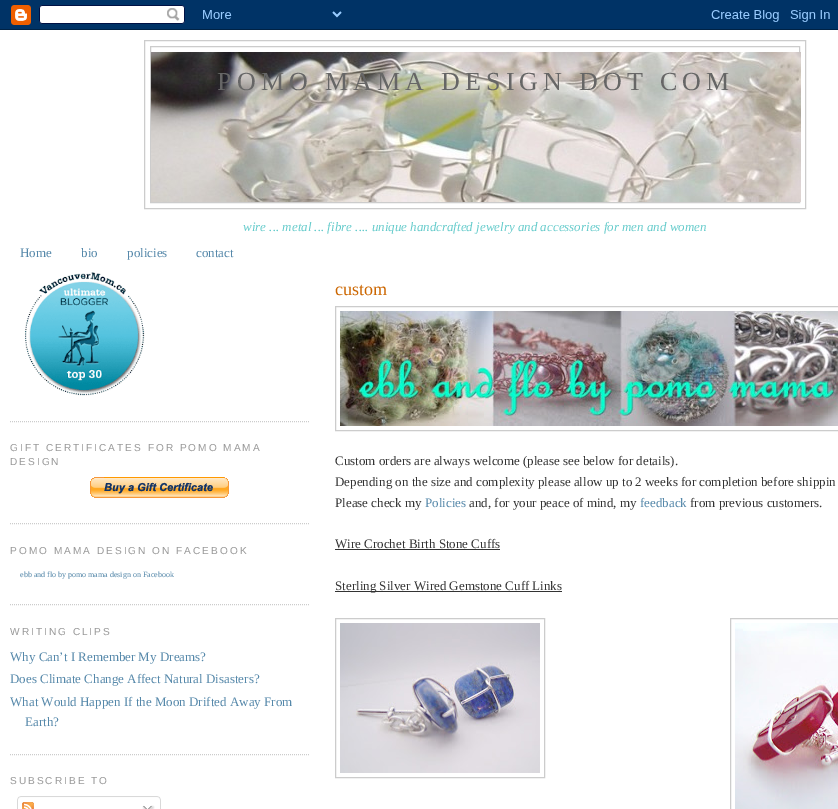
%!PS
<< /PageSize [838 809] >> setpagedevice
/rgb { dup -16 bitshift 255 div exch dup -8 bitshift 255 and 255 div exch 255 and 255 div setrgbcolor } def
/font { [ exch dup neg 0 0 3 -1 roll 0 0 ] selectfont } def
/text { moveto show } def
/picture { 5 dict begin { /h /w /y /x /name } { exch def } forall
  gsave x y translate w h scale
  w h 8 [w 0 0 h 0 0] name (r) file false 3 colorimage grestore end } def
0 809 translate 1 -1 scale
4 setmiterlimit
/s1 { /LiberationSerif-Italic 13 font 16#66CCCC rgb } def
/s2 { /LiberationSerif-Regular 13 font 16#5588AA rgb } def
/s3 { /LiberationSerif-Regular 8 font 16#5588AA rgb } def
/s4 { /LiberationSerif-Regular 18 font 16#CC6600 rgb } def
/s5 { /LiberationSerif-Regular 13 font 16#333333 rgb } def
16#FFFFFF rgb
0 0 838 809 rectfill
(pic1.raw) 0 0 838 30 picture
16#CCCCCC rgb
144.5 40.5 661 168 rectstroke
150.5 46.5 649 156 rectstroke
(pic2.raw) 151 52 650 150 picture
/LiberationSerif-Regular 26 font
16#666666 rgb
217 90 moveto 5.2 0 (POMO MAMA DESIGN DOT COM) ashow
s1
(wire ... metal ... fibre .... unique handcrafted jewelry and accessories for men and women) 243 231 text
s2
(Home) 20 257 text
(bio) 81 257 text
(policies) 127 257 text
(contact) 196 257 text
16#CCCCCC rgb
[1 1] 0 setdash
10 421.5 moveto 310 421.5 lineto stroke
(pic3.raw) 25 272 120 124 picture
10 523.5 moveto 310 523.5 lineto stroke
/LiberationSans-Regular 10.1 font
16#999999 rgb
10 451 moveto 2 0 (GIFT CERTIFICATES FOR POMO MAMA) ashow
10 465 moveto 2 0 (DESIGN) ashow
(pic4.raw) 90 477 139 21 picture
16#CCCCCC rgb
10 604.5 moveto 310 604.5 lineto stroke
16#999999 rgb
10 554 moveto 2 0 (POMO MAMA DESIGN ON FACEBOOK) ashow
s3
(ebb and flo by pomo mama design on Facebook) 20 577 text
16#CCCCCC rgb
10 754.5 moveto 310 754.5 lineto stroke
/LiberationSans-Regular 10.1 font
16#999999 rgb
10 635 moveto 2 0 (WRITING CLIPS) ashow
s2
(Why Can’t I Remember My Dreams?) 10 661 text
(Does Climate Change Affect Natural Disasters?) 10 683 text
(What Would Happen If the Moon Drifted Away From) 10 706 text
(Earth?) 25 726 text
/LiberationSans-Regular 10.1 font
16#999999 rgb
10 784 moveto 2 0 (SUBSCRIBE TO) ashow
(pic5.raw) 17 796 144 13 picture
(pic6.raw) 22 802 12 7 picture
(pic7.raw) 142 805 13 4 picture
s4
(custom) 335 295 text
16#CCCCCC rgb
[] 0 setdash
335.5 306.5 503 124 rectstroke
(pic8.raw) 340 311 498 115 picture
s5
(Custom orders are always welcome \(please see below for details\).) 335 465 text
(Depending on the size and complexity please allow up to 2 weeks for completion before shippin) 335 486 text
(Please check my) 335 507 text
s2
(Policies) 425 507 text
s5
(and, for your peace of mind, my) 469 507 text
s2
(feedback) 640 507 text
s5
(from previous customers.) 690 507 text
(Wire Crochet Birth Stone Cuffs) 335 548 text
335 549 165 1 rectfill
335 591 227 1 rectfill
(Sterling Silver Wired Gemstone Cuff Links) 335 590 text
16#CCCCCC rgb
335.5 618.5 209 159 rectstroke
(pic9.raw) 340 623 200 150 picture
730.5 618.5 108 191 rectstroke
(pic10.raw) 735 623 103 186 picture
showpage
